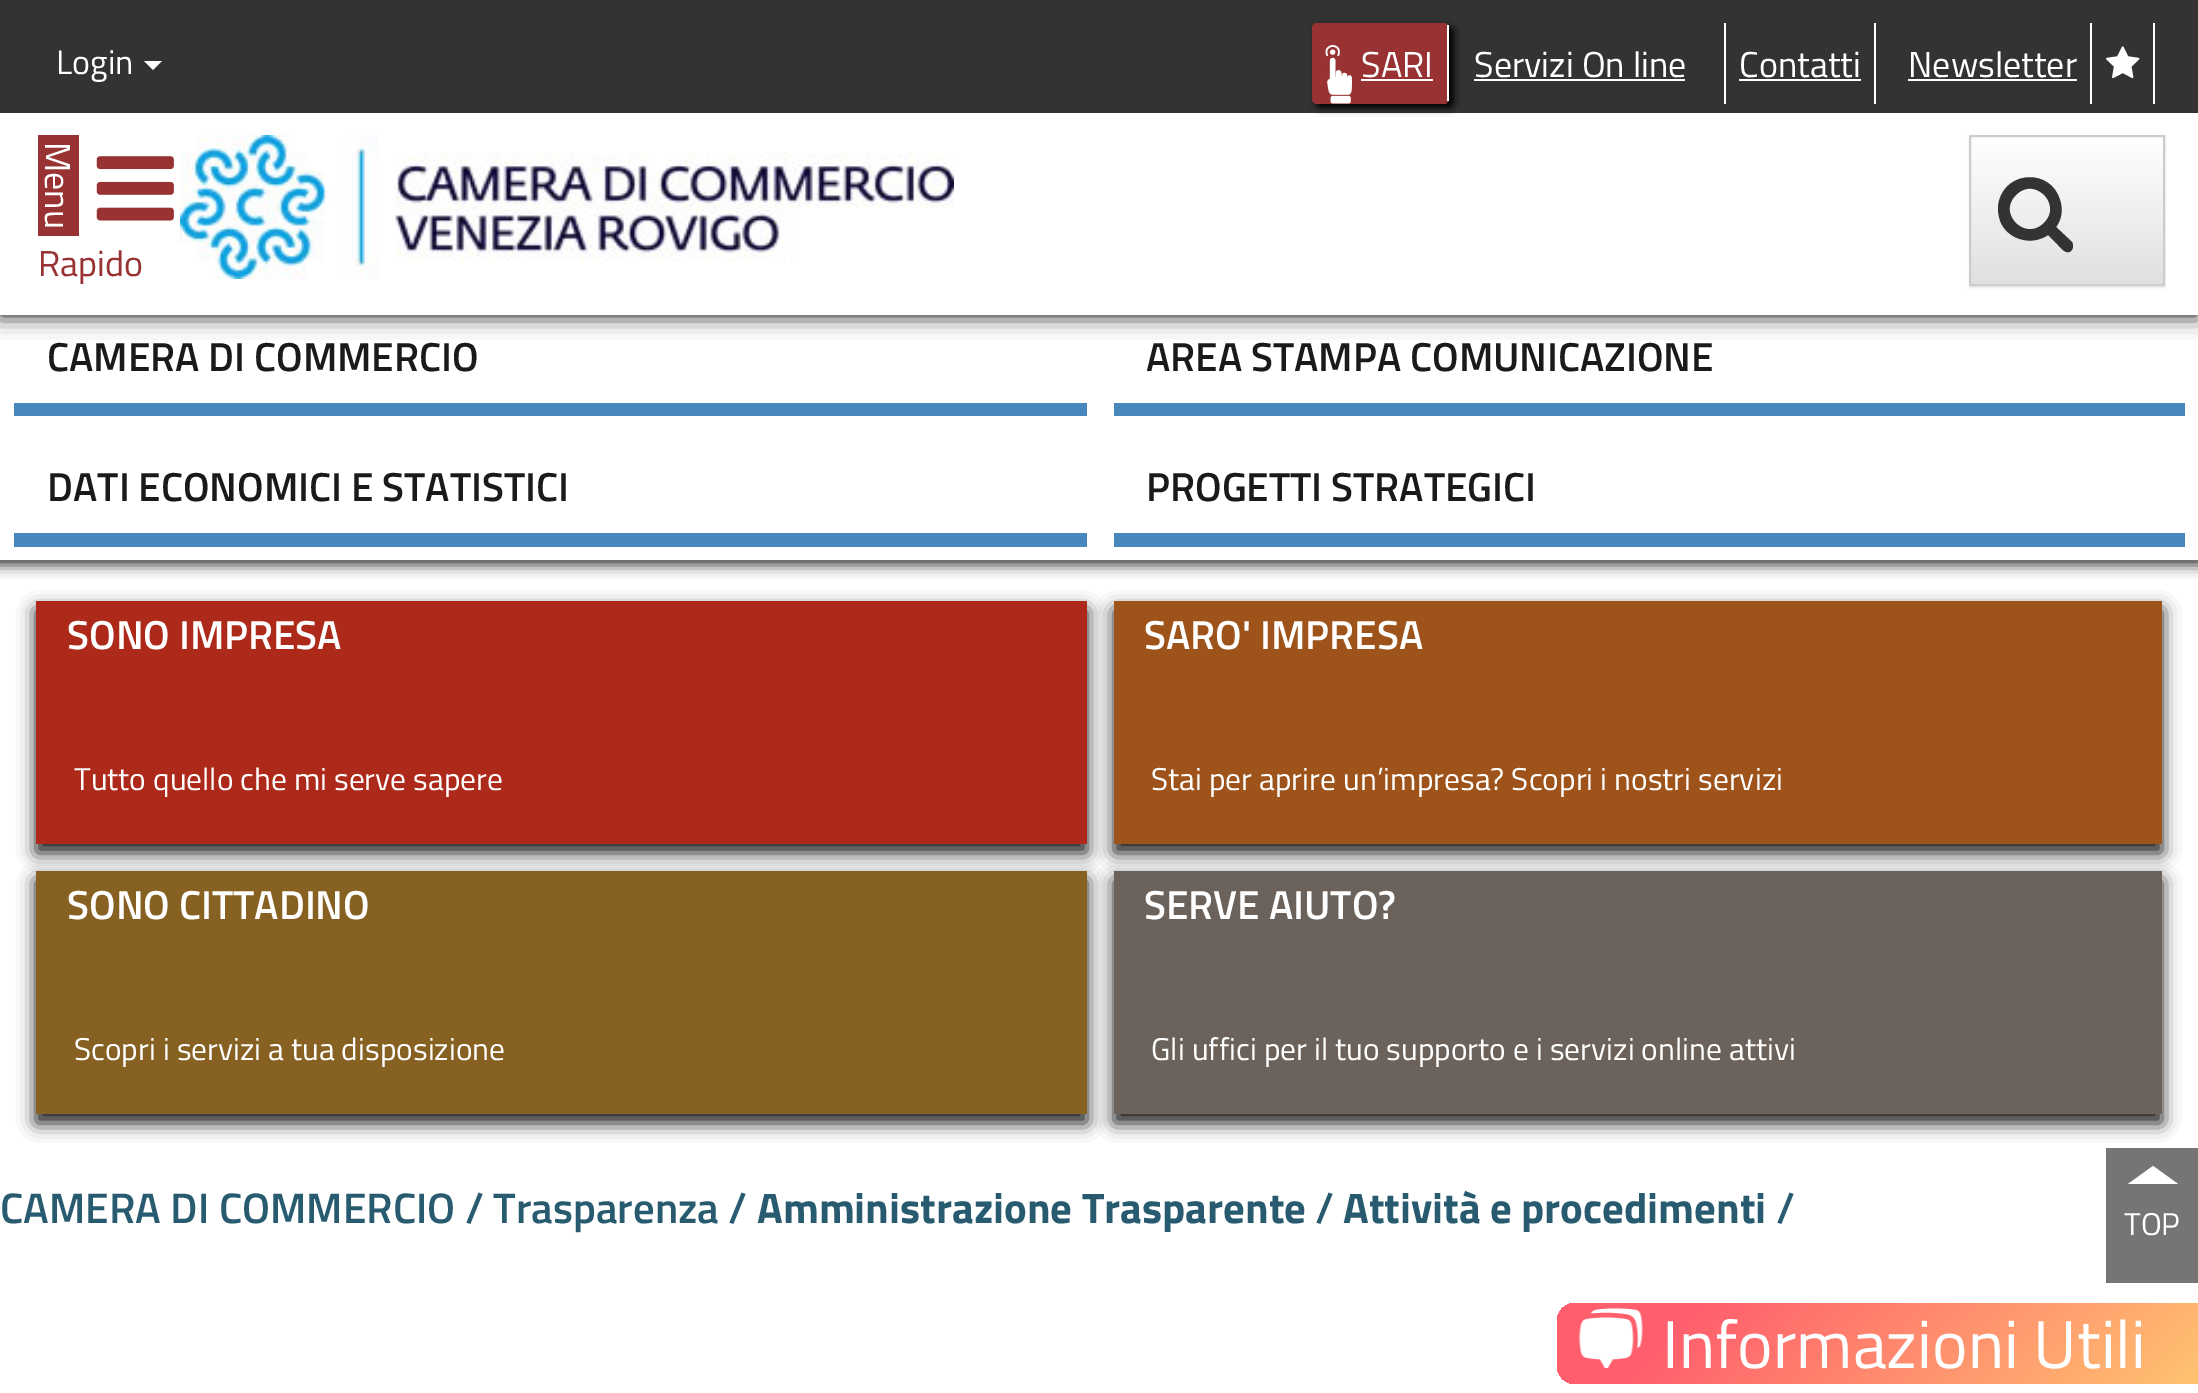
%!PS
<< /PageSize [2198 1393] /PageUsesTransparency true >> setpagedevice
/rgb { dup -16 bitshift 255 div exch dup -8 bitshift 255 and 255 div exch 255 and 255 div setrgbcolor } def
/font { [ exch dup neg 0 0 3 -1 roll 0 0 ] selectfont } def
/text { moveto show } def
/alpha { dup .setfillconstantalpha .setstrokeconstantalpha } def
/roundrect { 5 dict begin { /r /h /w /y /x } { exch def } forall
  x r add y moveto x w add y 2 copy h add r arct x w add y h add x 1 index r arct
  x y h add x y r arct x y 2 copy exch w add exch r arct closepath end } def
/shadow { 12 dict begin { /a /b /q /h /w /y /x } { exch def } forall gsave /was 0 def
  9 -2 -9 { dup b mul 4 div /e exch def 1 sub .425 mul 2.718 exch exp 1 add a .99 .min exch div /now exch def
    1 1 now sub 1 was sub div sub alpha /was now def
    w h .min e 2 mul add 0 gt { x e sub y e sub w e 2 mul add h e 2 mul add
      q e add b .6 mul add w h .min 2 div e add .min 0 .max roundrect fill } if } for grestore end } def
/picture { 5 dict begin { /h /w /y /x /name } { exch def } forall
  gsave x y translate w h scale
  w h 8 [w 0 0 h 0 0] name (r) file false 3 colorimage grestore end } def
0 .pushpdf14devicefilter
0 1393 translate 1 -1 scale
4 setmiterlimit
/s1 { /TitilliumWeb-Regular 34 font 16#FFFFFF rgb } def
/s2 { /TitilliumWeb-Regular 36 font 16#FFFFFF rgb } def
/s3 { /TitilliumWeb-Regular 36 font 16#993333 rgb } def
/s4 { /TitilliumWeb-SemiBold 40.5 font 16#1A1A1A rgb } def
/s5 { /TitilliumWeb-SemiBold 40.5 font 16#FFFFFF rgb } def
/s6 { /TitilliumWeb-Regular 31.5 font 16#FFFFFF rgb } def
/s7 { /TitilliumWeb-SemiBold 42.75 font 16#285B6F rgb } def
/s8 { /TitilliumWeb-Bold 42.75 font 16#285B6F rgb } def
/s9 { /TitilliumWeb-Regular 67.5 font 16#FFFFFF rgb } def
16#FFFFFF rgb
0 0 2198 1393 rectfill
16#000000 rgb
0 113 2198 202 0 11 1 shadow
16#333333 rgb
0 0 2198 113 rectfill
s1
(Login) 56 74 text
144 61 moveto 162 61 lineto 153 70 lineto closepath fill
gsave
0 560 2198 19 rectclip
16#333333 rgb
-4 295 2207 270 0 7 1 shadow
grestore
0 113 2198 202 rectfill
16#000000 rgb
1316 27 138 81 5 3.5 1 shadow
16#993333 rgb
1312 23 137 81 5 roundrect fill
16#FFFFFF rgb
1447 25 2 76 rectfill
(pic1.raw) 1325 45 27 59 picture
s2
(SARI) 1361 77 text
1361 79 72 2 rectfill
1724 23 2 81 rectfill
(Servizi On line) 1474 77 text
1474 79 211 2 rectfill
1874 23 2 81 rectfill
(Contatti) 1739 77 text
1739 79 122 2 rectfill
2090 23 2 81 rectfill
(Newsletter) 1908 77 text
1908 79 169 2 rectfill
2153 23 2 81 rectfill
(pic2.raw) 2106 46 34 33 picture
16#993333 rgb
38 135 41 101 rectfill
16#FFFFFF rgb
gsave 45 142 translate 90 rotate 0 0 moveto (Menu) show grestore
(pic3.raw) 96 156 78 65 picture
s3
(Rapido) 38 276 text
(pic4.raw) 180 135 774 144 picture
16#000000 rgb
1969 137 196 151 0 1 0.07 shadow
gsave 1971 137 moveto 2163 137 lineto 2163 284 lineto 1971 284 lineto closepath clip newpath
<< /ShadingType 2 /ColorSpace /DeviceRGB /Coords [2067 137 2067 284] /Extend [true true] /Function << /FunctionType 2 /Domain [0 1] /C0 [1 1 1] /C1 [0.878 0.878 0.878] /N 1 >> >> shfill grestore
16#CCCCCC rgb
2 setlinewidth
1970 136 194 149 rectstroke
16#333333 rgb
2044 223 moveto 2063 204 2034 176 2016 195 curveto 1997 213 2025 242 2044 223 curveto closepath 2073 247 moveto 2073 248 2072 250 2071 251 curveto 2066 255 2061 248 2058 245 curveto 2048 235 lineto 2032 246 2009 240 2001 223 curveto 1998 216 1997 208 1999 201 curveto 2007 170 2051 169 2060 200 curveto 2063 209 2062 219 2056 227 curveto 2072 242 lineto 2073 244 2073 245 2073 247 curveto closepath fill
16#4787BE rgb
14 403 1073 13 rectfill
s4
(CAMERA DI COMMERCIO) 47 371 text
16#4787BE rgb
1114 403 1071 13 rectfill
s4
(AREA STAMPA COMUNICAZIONE) 1146 371 text
16#4787BE rgb
14 533 1073 14 rectfill
s4
(DATI ECONOMICI E STATISTICI) 47 501 text
16#4787BE rgb
1114 533 1071 14 rectfill
s4
(PROGETTI STRATEGICI) 1146 501 text
36 610 1051 243 0 9 1 shadow
16#AD2A1A rgb
36 601 1051 243 rectfill
s5
(SONO IMPRESA) 67 649 text
s6
(Tutto quello che mi serve sapere) 74 790 text
16#000000 rgb
1114 610 1048 243 0 9 0.9 shadow
16#9D531A rgb
1114 601 1048 243 rectfill
s5
(SARO' IMPRESA) 1144 649 text
s6
(Stai per aprire un’impresa? Scopri i nostri servizi) 1151 790 text
gsave
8 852 moveto 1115 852 lineto 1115 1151 lineto 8 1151 lineto closepath 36 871 moveto 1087 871 lineto 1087 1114 lineto 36 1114 lineto closepath eoclip newpath
16#000000 rgb
36 880 1051 243 0 9 0.9 shadow
grestore
0.9 alpha
16#795009 rgb
36 871 1051 243 rectfill
1 alpha
s5
(SONO CITTADINO) 67 919 text
s6
(Scopri i servizi a tua disposizione) 74 1060 text
gsave
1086 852 moveto 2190 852 lineto 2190 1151 lineto 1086 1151 lineto closepath 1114 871 moveto 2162 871 lineto 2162 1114 lineto 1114 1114 lineto closepath eoclip newpath
16#000000 rgb
1114 880 1048 243 0 9 0.9 shadow
grestore
0.9 alpha
16#5B5249 rgb
1114 871 1048 243 rectfill
1 alpha
s5
(SERVE AIUTO?) 1144 919 text
s6
(Gli uffici per il tuo supporto e i servizi online attivi) 1151 1060 text
s7
(CAMERA DI COMMERCIO / Trasparenza /) 0 1223 text
s8
(Amministrazione Trasparente) 757 1223 text
s7
(/) 1315 1223 text
s8
(Attività e procedimenti) 1343 1223 text
s7
(/) 1776 1223 text
16#757575 rgb
2106 1148 92 135 rectfill
16#FFFFFF rgb
2128 1184 moveto 2153 1166 lineto 2178 1184 lineto closepath fill
s6
(TOP) 2124 1235 text
gsave 1575 1303 moveto 2198 1303 lineto 2198 1384 lineto 1575 1384 lineto 1565 1384 1557 1376 1557 1366 curveto 1557 1321 lineto 1557 1311 1565 1303 1575 1303 curveto closepath clip newpath
<< /ShadingType 2 /ColorSpace /DeviceRGB /Coords [1697 1163 2058 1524] /Extend [true true] /Function << /FunctionType 3 /Domain [0 1] /Functions [<< /FunctionType 2 /Domain [0 1] /C0 [1 0.373 0.427] /C1 [1 0.373 0.427] /N 1 >> << /FunctionType 2 /Domain [0 1] /C0 [1 0.373 0.427] /C1 [1 0.765 0.443] /N 1 >>] /Bounds [0.2] /Encode [0 1 0 1] >> >> shfill grestore
(pic5.raw) 1579 1308 64 60 picture
s9
(Informazioni Utili) 1662 1368 text
.poppdf14devicefilter showpage
